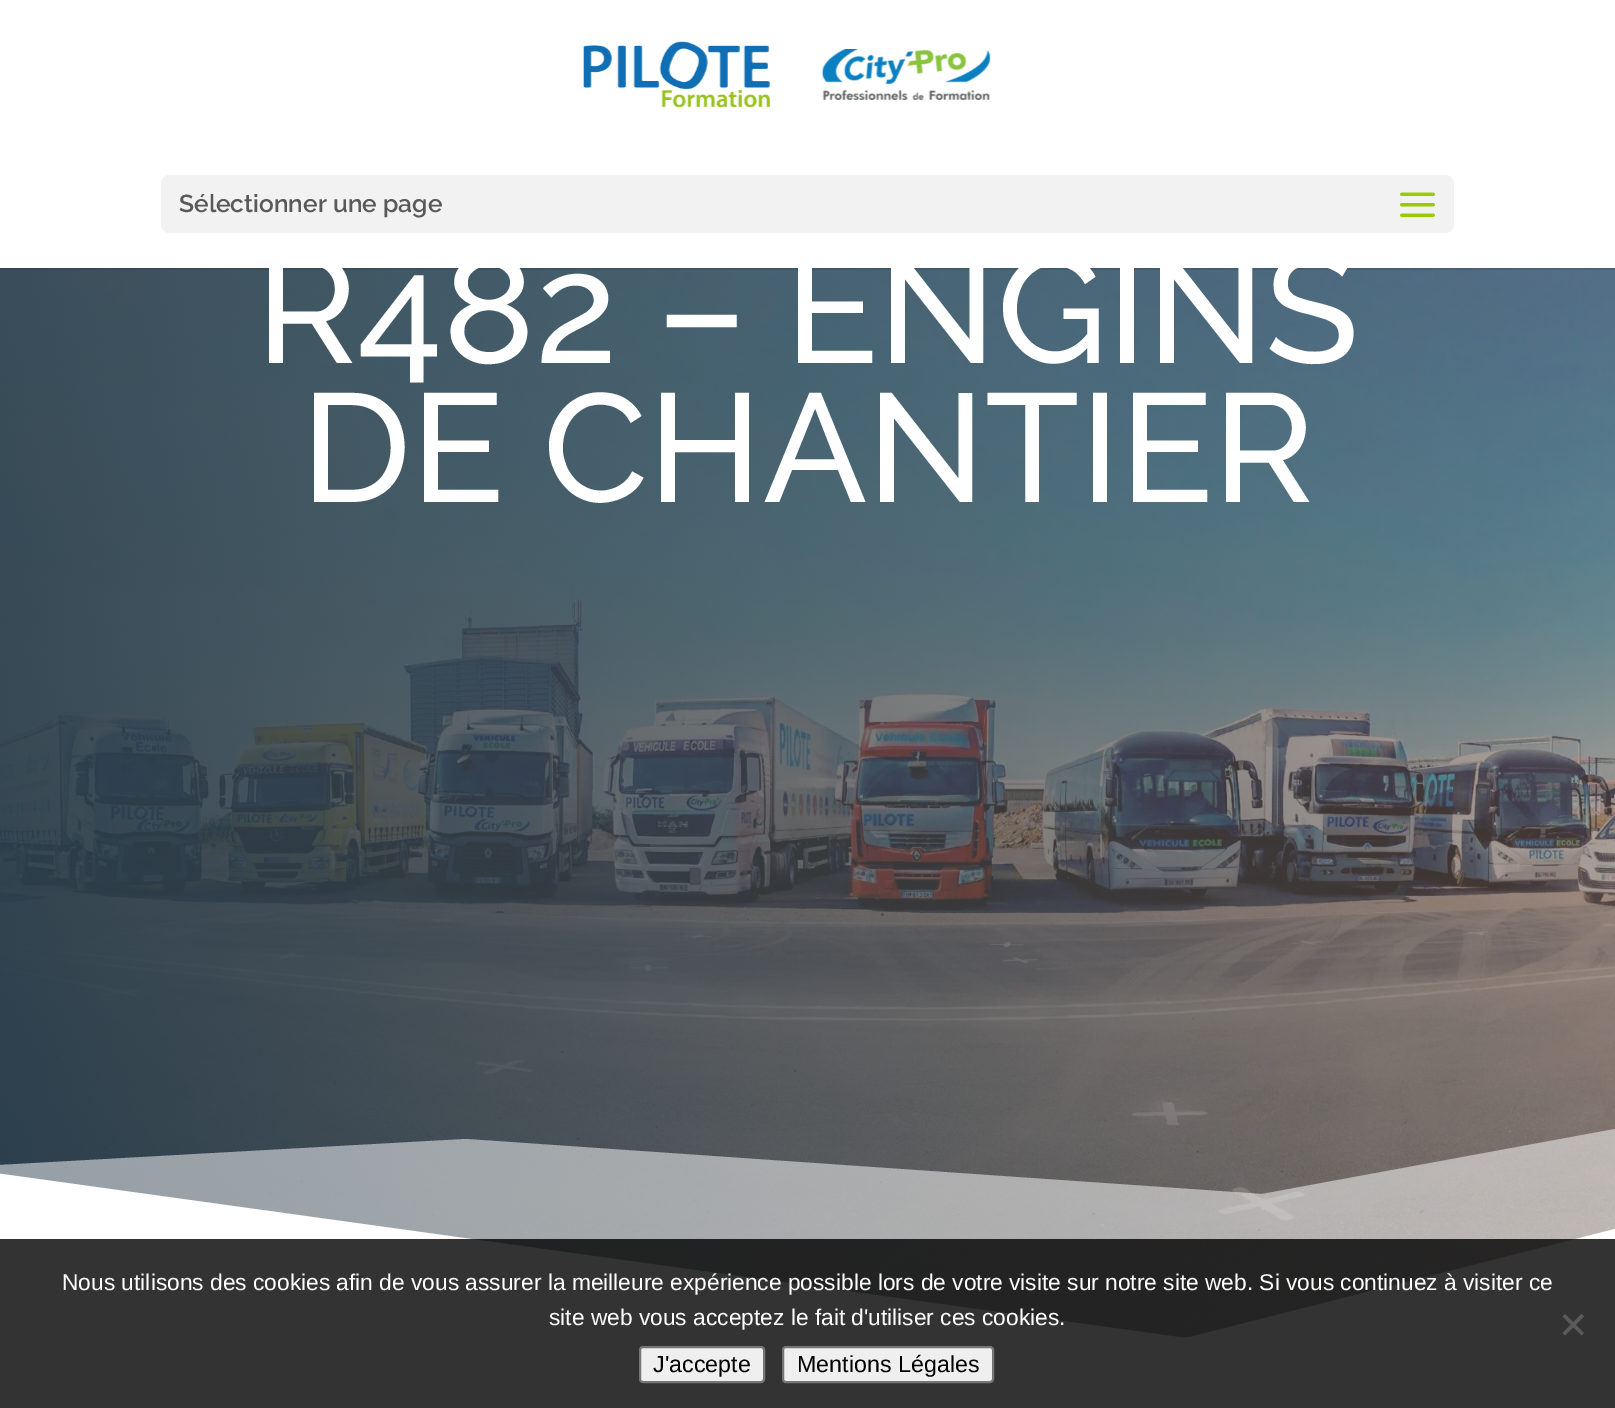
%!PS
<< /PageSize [1615 1408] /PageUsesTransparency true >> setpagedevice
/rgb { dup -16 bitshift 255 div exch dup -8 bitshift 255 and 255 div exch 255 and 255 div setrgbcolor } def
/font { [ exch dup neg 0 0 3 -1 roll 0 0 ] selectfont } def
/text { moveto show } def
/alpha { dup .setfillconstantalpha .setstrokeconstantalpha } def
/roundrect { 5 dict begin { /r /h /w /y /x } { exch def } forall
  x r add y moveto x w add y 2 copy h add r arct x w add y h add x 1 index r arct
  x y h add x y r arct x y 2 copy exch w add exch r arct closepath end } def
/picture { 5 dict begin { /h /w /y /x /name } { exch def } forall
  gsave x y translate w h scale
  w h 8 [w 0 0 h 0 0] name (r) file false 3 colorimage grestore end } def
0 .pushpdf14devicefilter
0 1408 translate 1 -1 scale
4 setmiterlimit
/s1 { /Raleway-SemiBold 24.5 font 16#595959 rgb } def
/s2 { /Raleway-Medium 154 font 16#FFFFFF rgb } def
/s3 { /LiberationSans-Regular 22.75 font 16#FFFFFF rgb } def
/s4 { /LiberationSans-Regular 23.25 font 16#000000 rgb } def
16#FFFFFF rgb
0 0 1615 1408 rectfill
(pic3.raw) 0 268 1615 1069 picture
0.1 alpha
16#000000 rgb
0 268 1615 2 rectfill
1 alpha
(pic1.raw) 583 41 408 67 picture
16#F2F2F2 rgb
161 175 1293 58 9 roundrect fill
s1
(Sélectionner une page) 179 212 text
(pic2.raw) 1400 192 35 25 picture
s2
(R482 – ENGINS) 256 363 text
(DE CHANTIER) 301 502 text
0.5 alpha
1615 1129 moveto 1262 1194 lineto 466 1139 lineto -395 1187 lineto -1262 1096 lineto -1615 1129 lineto -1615 1338 lineto 1615 1338 lineto closepath fill
1 alpha
1615 1338 moveto 1615 1229 lineto 1186 1338 lineto -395 1119 lineto -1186 1137 lineto -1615 1229 lineto -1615 1338 lineto closepath fill
0.8 alpha
16#000000 rgb
0 1239 1615 169 rectfill
1 alpha
s3
(Nous utilisons des cookies afin de vous assurer la meilleure expérience possible lors de votre visite sur notre site web. Si vous continuez à visiter ce) 62 1290 text
(site web vous acceptez le fait d'utiliser ces cookies.) 549 1325 text
16#5A5A5A rgb
1581.5 1314 moveto 1584 1316.5 lineto 1565 1335.5 lineto 1562.5 1333 lineto closepath fill
1562.5 1316.5 moveto 1565 1314 lineto 1584 1333 lineto 1581.5 1335.5 lineto closepath fill
16#EFEFEF rgb
640 1347 124 35 3 roundrect gsave fill grestore
16#767676 rgb
2 setlinewidth
stroke
s4
(J'accepte) 653 1372 text
16#EFEFEF rgb
783 1347 210 35 3 roundrect gsave fill grestore
16#767676 rgb
stroke
s4
(Mentions Légales) 797 1372 text
.poppdf14devicefilter showpage
